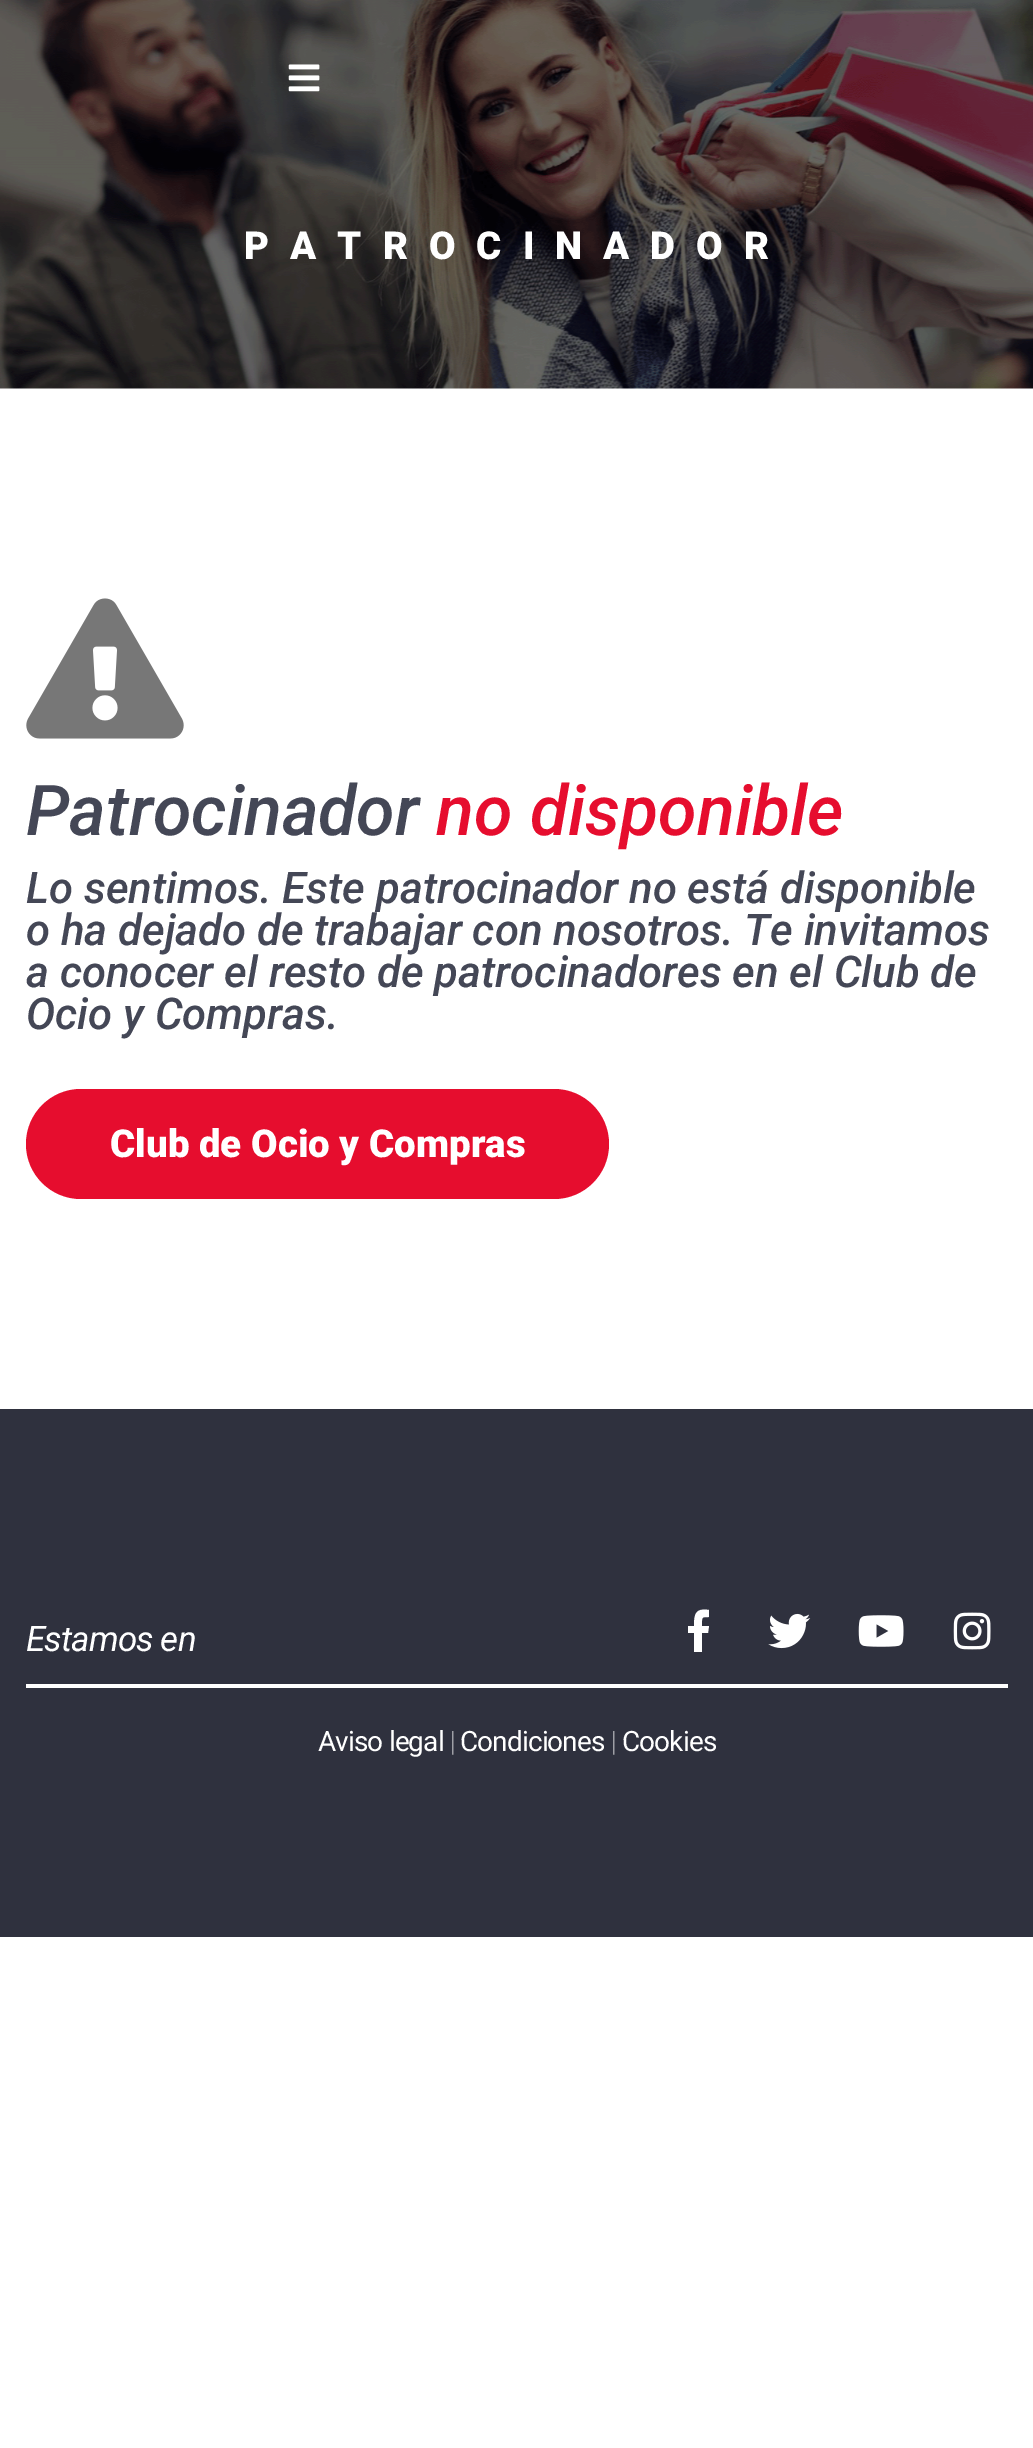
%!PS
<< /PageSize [1033 2448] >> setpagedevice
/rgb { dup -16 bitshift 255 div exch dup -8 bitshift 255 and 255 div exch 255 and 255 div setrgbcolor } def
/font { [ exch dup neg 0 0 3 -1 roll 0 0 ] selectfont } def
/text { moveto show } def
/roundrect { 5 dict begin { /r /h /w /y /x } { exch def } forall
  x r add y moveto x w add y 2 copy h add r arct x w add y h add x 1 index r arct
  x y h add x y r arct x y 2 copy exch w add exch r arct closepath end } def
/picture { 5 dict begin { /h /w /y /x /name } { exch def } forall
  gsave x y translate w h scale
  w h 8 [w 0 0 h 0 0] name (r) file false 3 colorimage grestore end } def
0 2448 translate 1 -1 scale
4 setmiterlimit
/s1 { /Roboto-MediumItalic 70 font 16#444756 rgb } def
/s2 { /Roboto-MediumItalic 70 font 16#E60D2E rgb } def
/s3 { /Roboto-MediumItalic 43.75 font 16#444756 rgb } def
/s4 { /Roboto-Black 38.5 font 16#FFFFFF rgb } def
16#FFFFFF rgb
0 0 1033 2448 rectfill
(pic2.raw) 0 0 1033 389 picture
(pic1.raw) 288 64 32 28 picture
/Roboto-Black 38.5 font
244 259 moveto 21 0 (PATROCINADOR) ashow
(pic3.raw) 26 598 158 141 picture
s1
(Patrocinador) 26 835 text
s2
(no disponible) 436 835 text
s3
(Lo sentimos. Este patrocinador no está disponible) 26 903 text
(o ha dejado de trabajar con nosotros. Te invitamos) 26 945 text
(a conocer el resto de patrocinadores en el Club de) 26 987 text
(Ocio y Compras.) 26 1029 text
16#E60D2E rgb
26 1089 583 110 55 roundrect fill
s4
(Club de Ocio y Compras) 110 1157 text
16#2F313E rgb
0 1409 1033 528 rectfill
/Roboto-Italic 35 font
16#FFFFFF rgb
26 1651 moveto -0.9 0 (Estamos en) ashow
694 1652 moveto 694 1633 lineto 688 1633 lineto 688 1626 lineto 694 1626 lineto 694 1613 696 1608 709 1610 curveto 709 1617 lineto 701 1617 702 1617 702 1626 curveto 709 1626 lineto 708 1633 lineto 702 1633 lineto 702 1652 lineto closepath fill
(pic4.raw) 768 1613 43 36 picture
(pic5.raw) 858 1615 46 32 picture
(pic6.raw) 953 1612 38 38 picture
26 1684 982 4 rectfill
/Roboto-Regular 28 font
318 1751 moveto -0.9 0 (Aviso legal) ashow
/Roboto-Thin 28 font
450 1751 moveto -0.9 0 (|) ashow
/Roboto-Regular 28 font
460 1751 moveto -0.9 0 (Condiciones) ashow
/Roboto-Thin 28 font
611 1751 moveto -0.9 0 (|) ashow
/Roboto-Regular 28 font
622 1751 moveto -0.9 0 (Cookies) ashow
showpage
